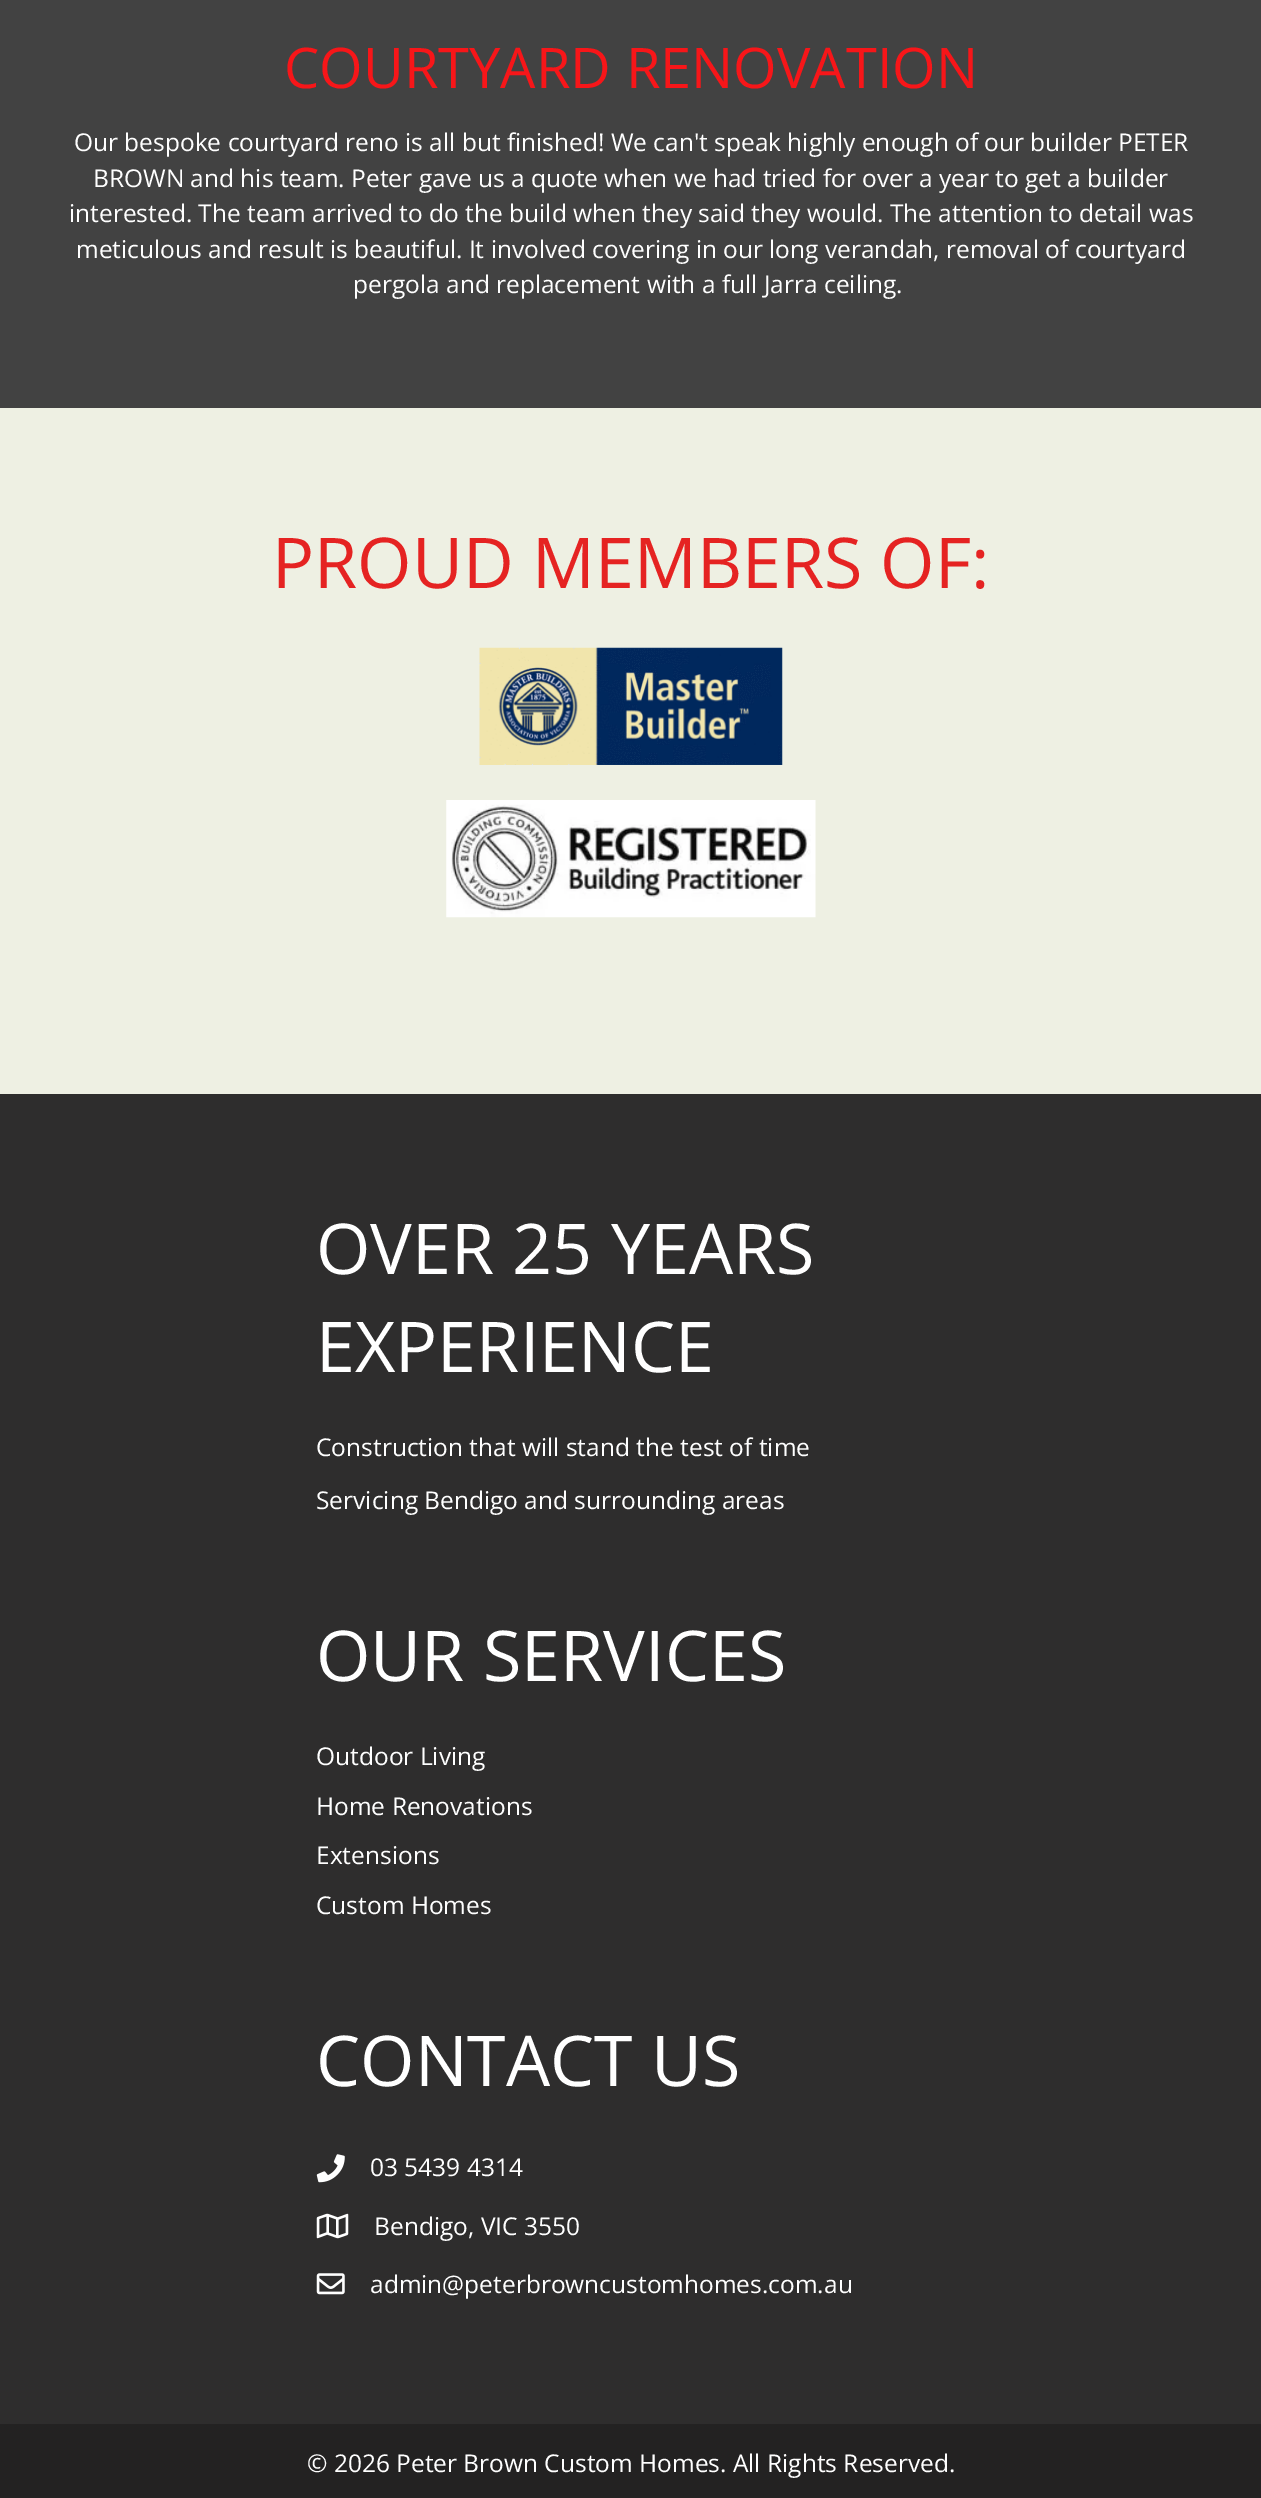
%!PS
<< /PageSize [1261 2498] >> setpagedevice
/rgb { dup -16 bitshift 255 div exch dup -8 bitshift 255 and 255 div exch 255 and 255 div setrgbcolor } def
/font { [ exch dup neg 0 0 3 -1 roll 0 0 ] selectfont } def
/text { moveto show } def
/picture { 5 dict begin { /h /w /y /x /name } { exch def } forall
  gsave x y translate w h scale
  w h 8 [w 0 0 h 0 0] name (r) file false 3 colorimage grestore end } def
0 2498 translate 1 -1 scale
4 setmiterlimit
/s1 { /OpenSans-Regular 56 font 16#F71619 rgb } def
/s2 { /OpenSans-Regular 24.5 font 16#FFFFFF rgb } def
/s3 { /OpenSans-Regular 70 font 16#E52322 rgb } def
/s4 { /OpenSans-Regular 70 font 16#FFFFFF rgb } def
16#424242 rgb
0 0 1261 2498 rectfill
s1
(COURTYARD RENOVATION) 284 88 text
s2
(Our bespoke courtyard reno is all but finished! We can't speak highly enough of our builder PETER) 74 151 text
(BROWN and his team. Peter gave us a quote when we had tried for over a year to get a builder) 93 187 text
(interested. The team arrived to do the build when they said they would. The attention to detail was) 69 222 text
(meticulous and result is beautiful. It involved covering in our long verandah, removal of courtyard) 76 258 text
(pergola and replacement with a full Jarra ceiling.) 353 293 text
16#EEF0E3 rgb
0 408 1261 686 rectfill
s3
(PROUD MEMBERS OF:) 272 588 text
(pic1.raw) 479 647 304 118 picture
(pic2.raw) 446 800 370 118 picture
16#2E2D2D rgb
0 1094 1261 1330 rectfill
s4
(OVER 25 YEARS) 316 1274 text
(EXPERIENCE) 316 1372 text
s2
(Construction that will stand the test of time) 316 1456 text
(Servicing Bendigo and surrounding areas) 316 1509 text
s4
(OUR SERVICES) 316 1681 text
s2
(Outdoor Living) 316 1765 text
(Home Renovations) 316 1815 text
(Extensions) 316 1864 text
(Custom Homes) 316 1914 text
s4
(CONTACT US) 316 2086 text
(pic3.raw) 316 2154 29 29 picture
s2
(03 5439 4314) 370 2176 text
(pic4.raw) 316 2213 33 26 picture
(Bendigo, VIC 3550) 374 2235 text
(pic5.raw) 316 2273 29 22 picture
(admin@peterbrowncustomhomes.com.au) 370 2293 text
16#232222 rgb
0 2424 1261 74 rectfill
s2
(© 2026 Peter Brown Custom Homes. All Rights Reserved.) 307 2472 text
showpage
